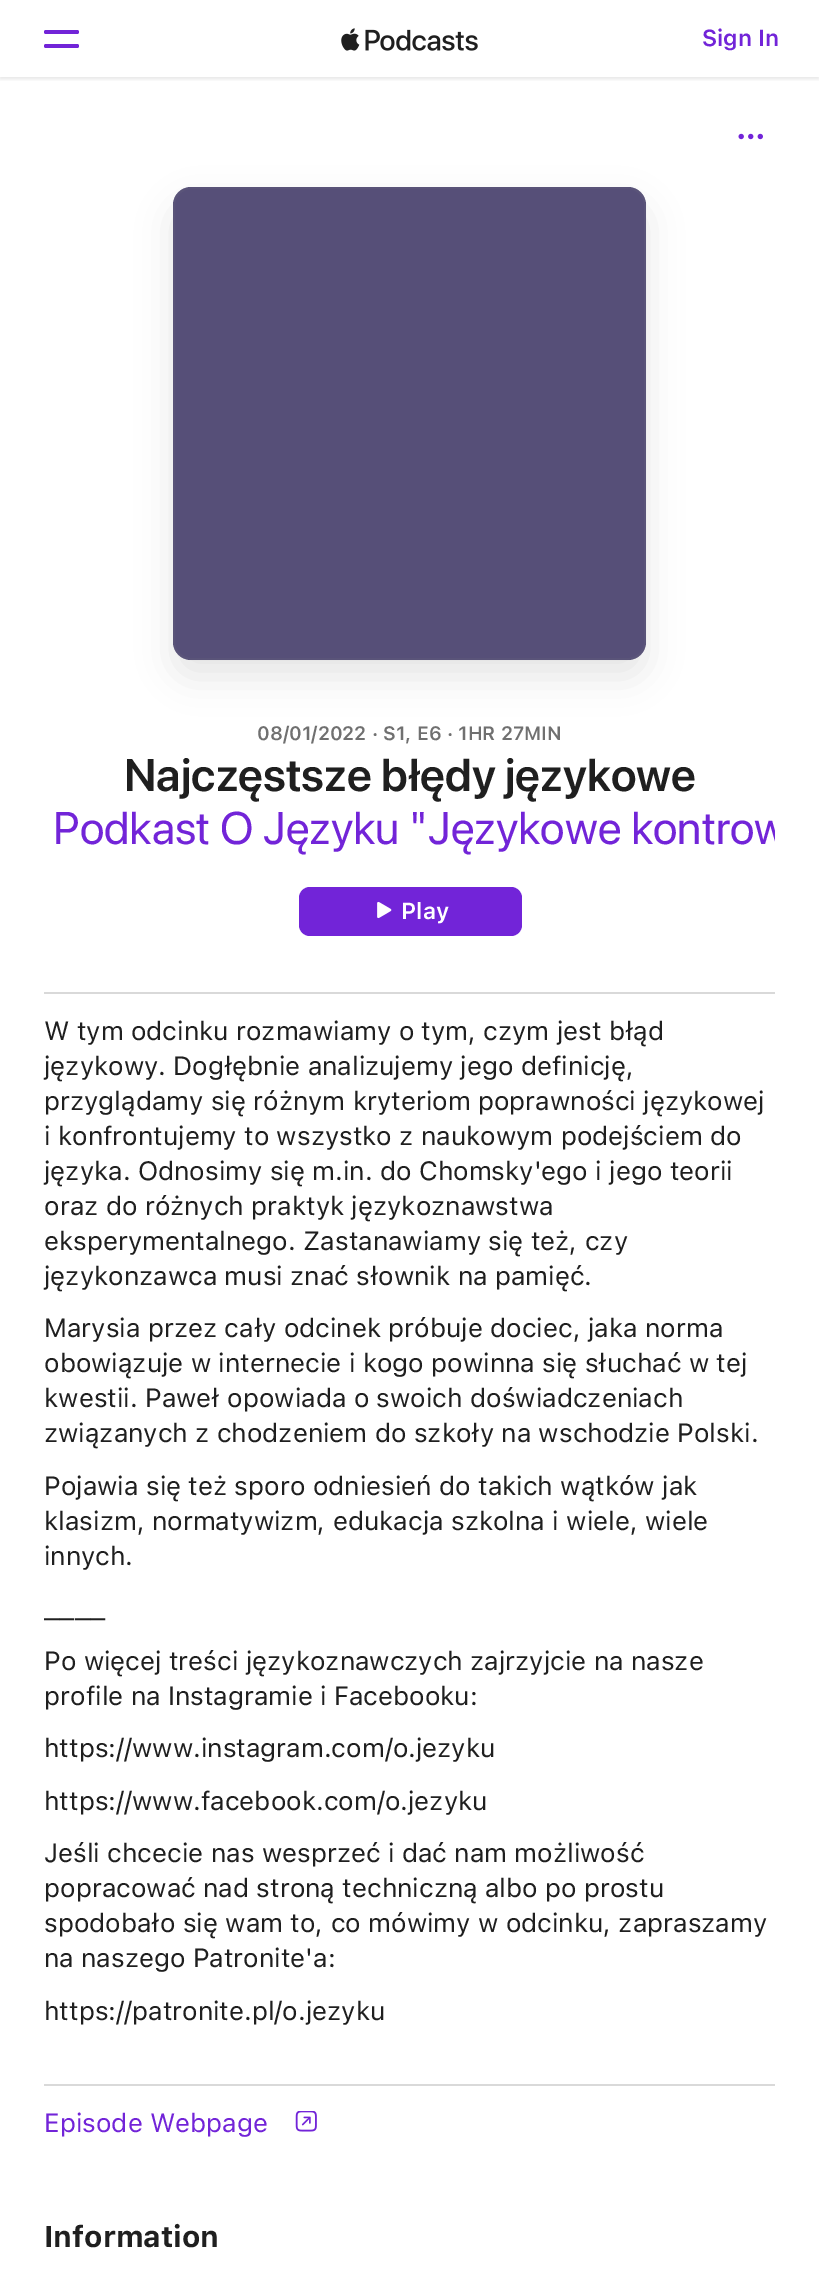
%!PS
<< /PageSize [819 2277] /PageUsesTransparency true >> setpagedevice
/rgb { dup -16 bitshift 255 div exch dup -8 bitshift 255 and 255 div exch 255 and 255 div setrgbcolor } def
/font { [ exch dup neg 0 0 3 -1 roll 0 0 ] selectfont } def
/text { moveto show } def
/alpha { dup .setfillconstantalpha .setstrokeconstantalpha } def
/roundrect { 5 dict begin { /r /h /w /y /x } { exch def } forall
  x r add y moveto x w add y 2 copy h add r arct x w add y h add x 1 index r arct
  x y h add x y r arct x y 2 copy exch w add exch r arct closepath end } def
/shadow { 12 dict begin { /a /b /q /h /w /y /x } { exch def } forall gsave /was 0 def
  9 -2 -9 { dup b mul 4 div /e exch def 1 sub .425 mul 2.718 exch exp 1 add a .99 .min exch div /now exch def
    1 1 now sub 1 was sub div sub alpha /was now def
    w h .min e 2 mul add 0 gt { x e sub y e sub w e 2 mul add h e 2 mul add
      q e add b .6 mul add w h .min 2 div e add .min 0 .max roundrect fill } if } for grestore end } def
/picture { 5 dict begin { /h /w /y /x /name } { exch def } forall
  gsave x y translate w h scale
  w h 8 [w 0 0 h 0 0] name (r) file false 3 colorimage grestore end } def
0 .pushpdf14devicefilter
0 2277 translate 1 -1 scale
4 setmiterlimit
/s1 { /SF-SemiBold 23 font 16#7224D8 rgb } def
/s2 { /SF-SemiBold 19.25 font 16#707070 rgb } def
/s3 { /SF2-SemiBold 45.5 font 16#1F1F1F rgb } def
/s4 { /SF-Regular 45.5 font 16#7224D8 rgb } def
/s5 { /SF-SemiBold 23 font 16#FFFFFF rgb } def
/s6 { /SF2-Regular 26.25 font 16#1F1F1F rgb } def
/s7 { /SF2-Regular 26.25 font 16#7224D8 rgb } def
/s8 { /SF-Bold 29.75 font 16#1F1F1F rgb } def
16#FFFFFF rgb
0 0 819 2277 rectfill
gsave
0 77 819 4 rectclip
16#000000 rgb
0 2 819 77 0 2 0.1 shadow
grestore
16#7224D8 rgb
44 30 35 4 2 roundrect fill
44 44 35 4 2 roundrect fill
(pic1.raw) 341 28 137 23 picture
s1
(Sign In) 702 46 text
(pic2.raw) 738 133 25 7 picture
16#000000 rgb
173 205 473 472 18 17.5 0.1 shadow
16#564F78 rgb
173 187 473 473 18 roundrect fill
0.1 alpha
16#808080 rgb
2 setlinewidth
174 188 471 471 17 roundrect stroke
1 alpha
s2
(08/01/2022 · S1, E6 · 1HR 27MIN) 257 740 text
s3
(Najczęstsze błędy językowe) 124 791 text
gsave
44 791 731 74 rectclip
s4
(Podkast O Języku "Językowe kontrow) 53 844 text
grestore
16#7224D8 rgb
299 887 223 49 11 roundrect fill
(pic3.raw) 377 901 15 18 picture
s5
(Play) 401 919 text
16#D9D9D9 rgb
44 992 731 2 rectfill
s6
(W tym odcinku rozmawiamy o tym, czym jest błąd) 44 1040 text
(językowy. Dogłębnie analizujemy jego definicję,) 44 1075 text
(przyglądamy się różnym kryteriom poprawności językowej) 44 1110 text
(i konfrontujemy to wszystko z naukowym podejściem do) 44 1145 text
(języka. Odnosimy się m.in. do Chomsky'ego i jego teorii) 44 1180 text
(oraz do różnych praktyk językoznawstwa) 44 1215 text
(eksperymentalnego. Zastanawiamy się też, czy) 44 1250 text
(językonzawca musi znać słownik na pamięć.) 44 1285 text
(Marysia przez cały odcinek próbuje dociec, jaka norma) 44 1337 text
(obowiązuje w internecie i kogo powinna się słuchać w tej) 44 1372 text
(kwestii. Paweł opowiada o swoich doświadczeniach) 44 1407 text
(związanych z chodzeniem do szkoły na wschodzie Polski.) 44 1442 text
(Pojawia się też sporo odniesień do takich wątków jak) 44 1495 text
(klasizm, normatywizm, edukacja szkolna i wiele, wiele) 44 1530 text
(innych.) 44 1565 text
(____) 44 1617 text
(Po więcej treści językoznawczych zajrzyjcie na nasze) 44 1670 text
(profile na Instagramie i Facebooku:) 44 1705 text
(https://www.instagram.com/o.jezyku) 44 1757 text
(https://www.facebook.com/o.jezyku) 44 1810 text
(Jeśli chcecie nas wesprzeć i dać nam możliwość) 44 1862 text
(popracować nad stroną techniczną albo po prostu) 44 1897 text
(spodobało się wam to, co mówimy w odcinku, zapraszamy) 44 1932 text
(na naszego Patronite'a:) 44 1967 text
(https://patronite.pl/o.jezyku) 44 2020 text
16#D9D9D9 rgb
44 2084 731 2 rectfill
s7
(Episode Webpage) 44 2132 text
(pic4.raw) 295 2111 22 21 picture
s8
(Information) 44 2247 text
.poppdf14devicefilter showpage
